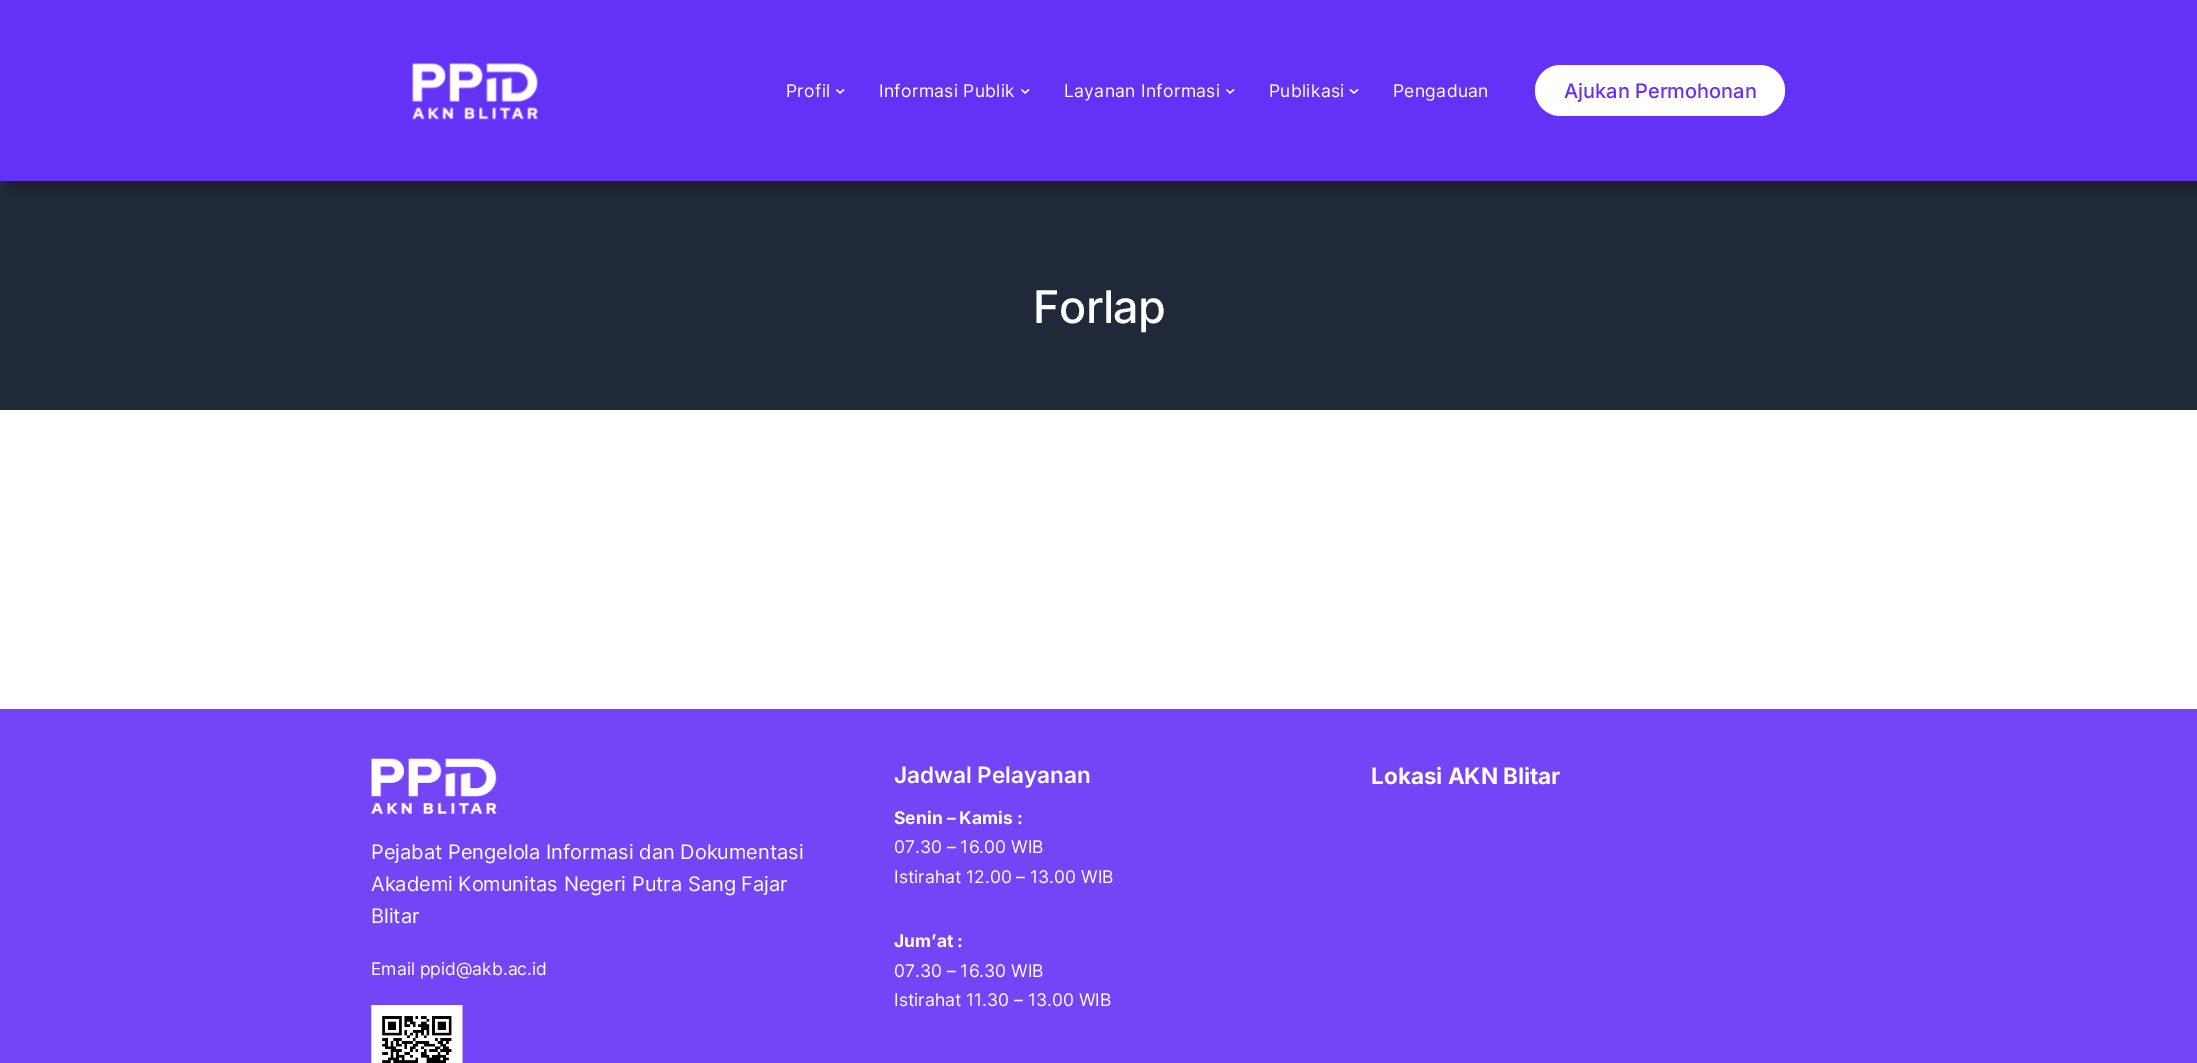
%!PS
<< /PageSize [2197 1063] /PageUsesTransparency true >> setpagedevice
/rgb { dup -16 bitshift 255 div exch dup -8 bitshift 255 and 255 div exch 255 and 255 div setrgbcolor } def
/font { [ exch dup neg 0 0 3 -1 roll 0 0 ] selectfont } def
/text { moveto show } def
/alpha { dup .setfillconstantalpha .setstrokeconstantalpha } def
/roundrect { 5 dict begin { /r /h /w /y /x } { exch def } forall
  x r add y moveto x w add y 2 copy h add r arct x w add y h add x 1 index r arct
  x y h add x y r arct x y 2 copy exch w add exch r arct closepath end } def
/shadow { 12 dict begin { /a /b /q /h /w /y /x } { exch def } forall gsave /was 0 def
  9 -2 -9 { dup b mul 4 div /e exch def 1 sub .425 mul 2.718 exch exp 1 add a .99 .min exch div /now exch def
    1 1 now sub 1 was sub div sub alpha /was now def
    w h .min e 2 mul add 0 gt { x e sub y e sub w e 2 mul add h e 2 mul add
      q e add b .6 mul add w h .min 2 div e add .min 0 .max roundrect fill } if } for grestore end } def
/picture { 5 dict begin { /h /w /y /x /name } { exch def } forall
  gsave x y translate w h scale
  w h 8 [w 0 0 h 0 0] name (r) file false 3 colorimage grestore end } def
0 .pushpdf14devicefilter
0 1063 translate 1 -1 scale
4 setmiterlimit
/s1 { /Inter-Medium 20 font 16#6431F6 rgb } def
/s2 { /Inter-SemiBold 22.5 font 16#FFFFFF rgb } def
/s3 { /Inter-Bold 17.5 font 16#FFFFFF rgb } def
/s4 { /Inter-Regular 17.5 font 16#FFFFFF rgb } def
/s5 { /Inter-Bold 22.5 font 16#FFFFFF rgb } def
/s6 { /Inter-Regular 20 font 16#FFFFFF rgb } def
16#FFFFFF rgb
0 0 2197 1063 rectfill
16#1F2937 rgb
0 181 2197 229 rectfill
16#000000 rgb
8 8 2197 181 0 5.5 0.2 shadow
16#6431F7 rgb
0 0 2197 181 rectfill
(pic1.raw) 412 63 127 57 picture
/Inter-Regular 17.5 font
16#FFFFFF rgb
786 97 moveto 0.3 0 (Profil) ashow
1.3 setlinewidth
836.5 89.5 moveto 840 93 lineto 844 89.5 lineto stroke
879 97 moveto 0.3 0 (Informasi Publik) ashow
1021.5 89.5 moveto 1025 93 lineto 1029 89.5 lineto stroke
1064 97 moveto 0.3 0 (Layanan Informasi) ashow
1226.5 89.5 moveto 1230 93 lineto 1234 89.5 lineto stroke
1269 97 moveto 0.3 0 (Publikasi) ashow
1350 89.5 moveto 1354 93 lineto 1358 89.5 lineto stroke
1393 97 moveto 0.3 0 (Pengaduan) ashow
1535 65 250 51 25.5 roundrect fill
s1
(Ajukan Permohonan) 1564 98 text
/Inter-Medium 45 font
16#FFFFFF rgb
1033 323 moveto -0.5 0 (Forlap) ashow
16#7345F7 rgb
0 709 2197 354 rectfill
s2
(Jadwal Pelayanan) 894 783 text
s3
(Senin – Kamis :) 894 824 text
s4
(07.30 – 16.00 WIB) 894 853 text
(Istirahat 12.00 – 13.00 WIB) 894 883 text
s3
(Jum’at :) 894 947 text
s4
(07.30 – 16.30 WIB) 894 977 text
(Istirahat 11.30 – 13.00 WIB) 894 1006 text
s5
(Lokasi AKN Blitar) 1371 784 text
(pic2.raw) 371 758 126 56 picture
s6
(Pejabat Pengelola Informasi dan Dokumentasi) 371 859 text
(Akademi Komunitas Negeri Putra Sang Fajar) 371 891 text
(Blitar) 371 923 text
s4
(Email ppid@akb.ac.id) 371 975 text
(pic3.raw) 371 1005 92 58 picture
.poppdf14devicefilter showpage
